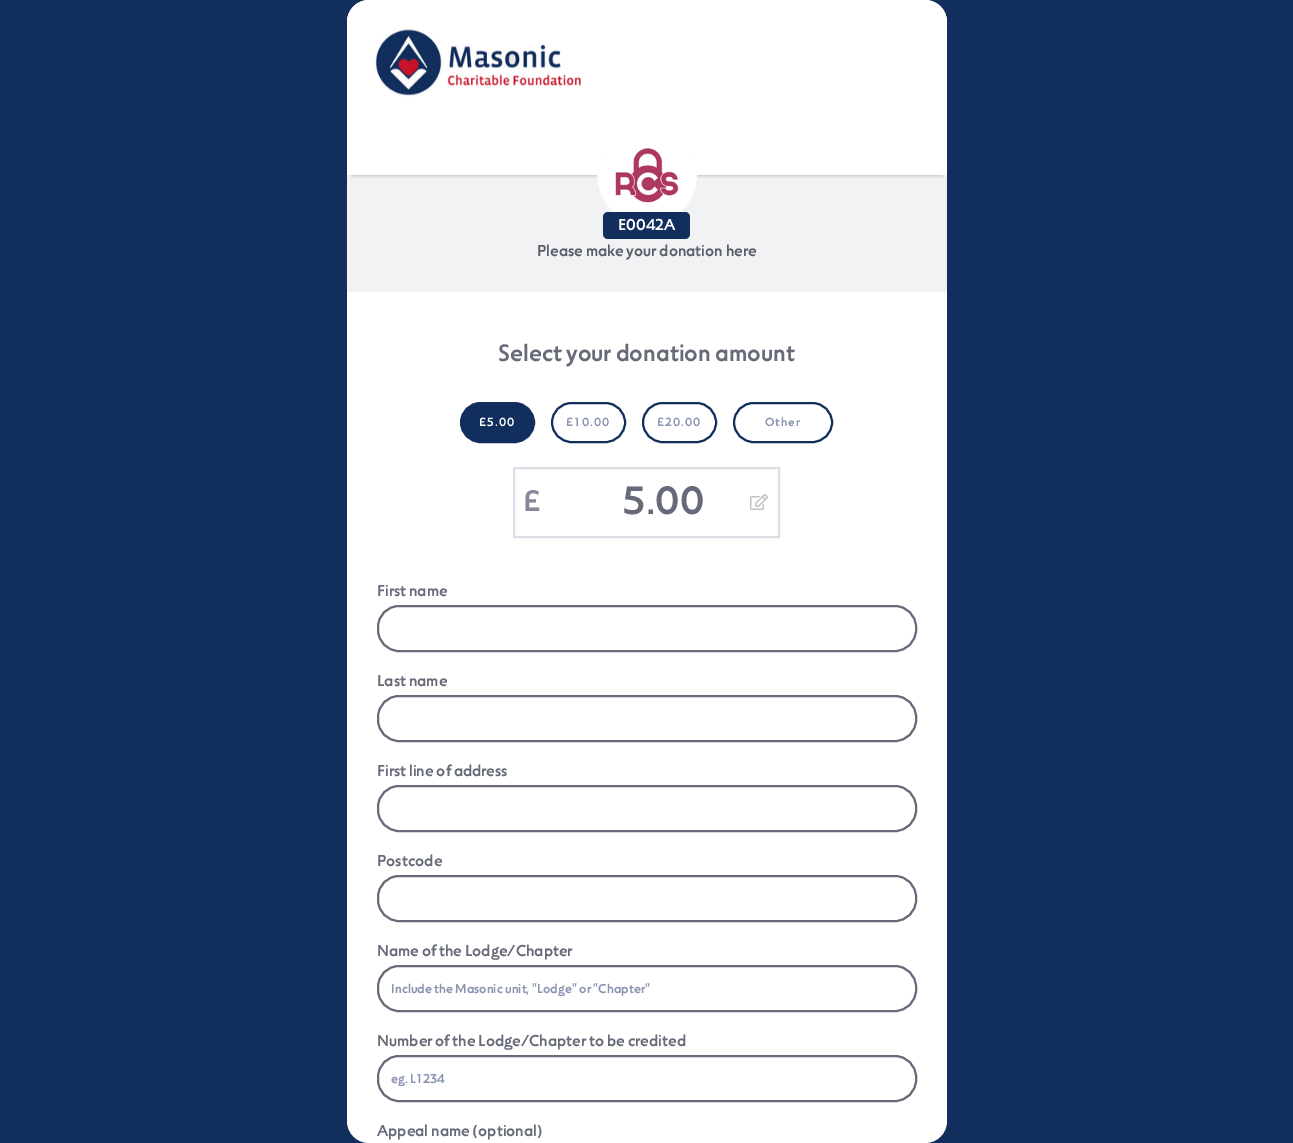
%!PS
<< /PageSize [1293 1143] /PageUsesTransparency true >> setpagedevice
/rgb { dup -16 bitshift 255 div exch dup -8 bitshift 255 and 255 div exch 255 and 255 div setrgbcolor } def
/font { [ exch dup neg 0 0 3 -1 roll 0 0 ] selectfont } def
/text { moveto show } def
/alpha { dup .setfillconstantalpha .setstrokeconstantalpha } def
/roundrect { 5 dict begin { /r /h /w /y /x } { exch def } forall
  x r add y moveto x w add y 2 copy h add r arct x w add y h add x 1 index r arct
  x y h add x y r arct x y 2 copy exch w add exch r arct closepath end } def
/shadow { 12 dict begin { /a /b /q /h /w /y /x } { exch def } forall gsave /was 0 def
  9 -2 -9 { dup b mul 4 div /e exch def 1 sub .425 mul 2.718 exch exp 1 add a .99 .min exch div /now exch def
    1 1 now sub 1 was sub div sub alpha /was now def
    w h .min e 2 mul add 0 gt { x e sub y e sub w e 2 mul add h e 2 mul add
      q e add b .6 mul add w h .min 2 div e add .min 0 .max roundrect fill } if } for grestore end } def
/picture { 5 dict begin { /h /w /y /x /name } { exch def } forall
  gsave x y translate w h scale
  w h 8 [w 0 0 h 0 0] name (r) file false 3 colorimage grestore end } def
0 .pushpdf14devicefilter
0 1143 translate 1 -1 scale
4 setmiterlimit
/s1 { /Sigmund-Light 16 font 16#FFFFFF rgb } def
/s2 { /Sigmund-Light 16 font 16#5C5E6C rgb } def
/s3 { /Sigmund-Light 24 font 16#676A78 rgb } def
/s4 { /Sigmund-Light 30 font 16#848899 rgb } def
/s5 { /Sigmund-Light 40 font 16#676A78 rgb } def
/s6 { /Sigmund-Light 16 font 16#676A78 rgb } def
/s7 { /Sigmund-Light 13 font 16#8994B0 rgb } def
16#122E5D rgb
0 0 1293 1143 rectfill
16#FFFFFF rgb
347 0 600 1143 22 roundrect fill
16#F1F2F3 rgb
369 0 moveto 925 0 lineto 937 0 947 10 947 22 curveto 947 250 lineto 347 250 lineto 347 22 lineto 347 10 357 0 369 0 curveto closepath fill
gsave
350 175 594 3 rectclip
16#000000 rgb
353 9 588 163 0 3 1 shadow
grestore
(pic1.raw) 347 0 600 175 picture
(pic2.raw) 597 148 100 64 picture
16#122E5D rgb
603 212 87 27 5 roundrect fill
s1
(E0042A) 618 230 text
16#F1F2F3 rgb
347 250 600 42 rectfill
s2
(Please make your donation here) 537 256 text
s3
(Select your donation amount) 498 361 text
16#122E5D rgb
461 403 73 39 19.5 roundrect gsave fill grestore
2 setlinewidth
stroke
/Sigmund-Light 12 font
16#FFFFFF rgb
479 426 moveto 1 0 (£5.00) ashow
16#122E5D rgb
552 403 73 39 19.5 roundrect stroke
16#8994B0 rgb
566 426 moveto 1 0 (£10.00) ashow
16#122E5D rgb
643 403 73 39 19.5 roundrect stroke
16#8994B0 rgb
657 426 moveto 1 0 (£20.00) ashow
16#122E5D rgb
734 403 98 39 19.5 roundrect stroke
16#8994B0 rgb
765 426 moveto 1 0 (Other) ashow
16#DDDEE6 rgb
514 468 265 69 rectstroke
s4
(£) 523 511 text
s5
(5.00) 623 514 text
(pic3.raw) 750 494 18 16 picture
s6
(First name) 377 596 text
378 606 538 45 21 roundrect stroke
(Last name) 377 686 text
378 696 538 45 21 roundrect stroke
(First line of address) 377 776 text
378 786 538 45 21 roundrect stroke
(Postcode) 377 866 text
378 876 538 45 21 roundrect stroke
(Name of the Lodge/Chapter) 377 956 text
378 966 538 45 21 roundrect stroke
s7
(Include the Masonic unit, "Lodge" or "Chapter") 391 993 text
s6
(Number of the Lodge/Chapter to be credited) 377 1046 text
378 1056 538 45 21 roundrect stroke
s7
(eg. L1234) 391 1083 text
s6
(Appeal name \(optional\)) 377 1136 text
.poppdf14devicefilter showpage
